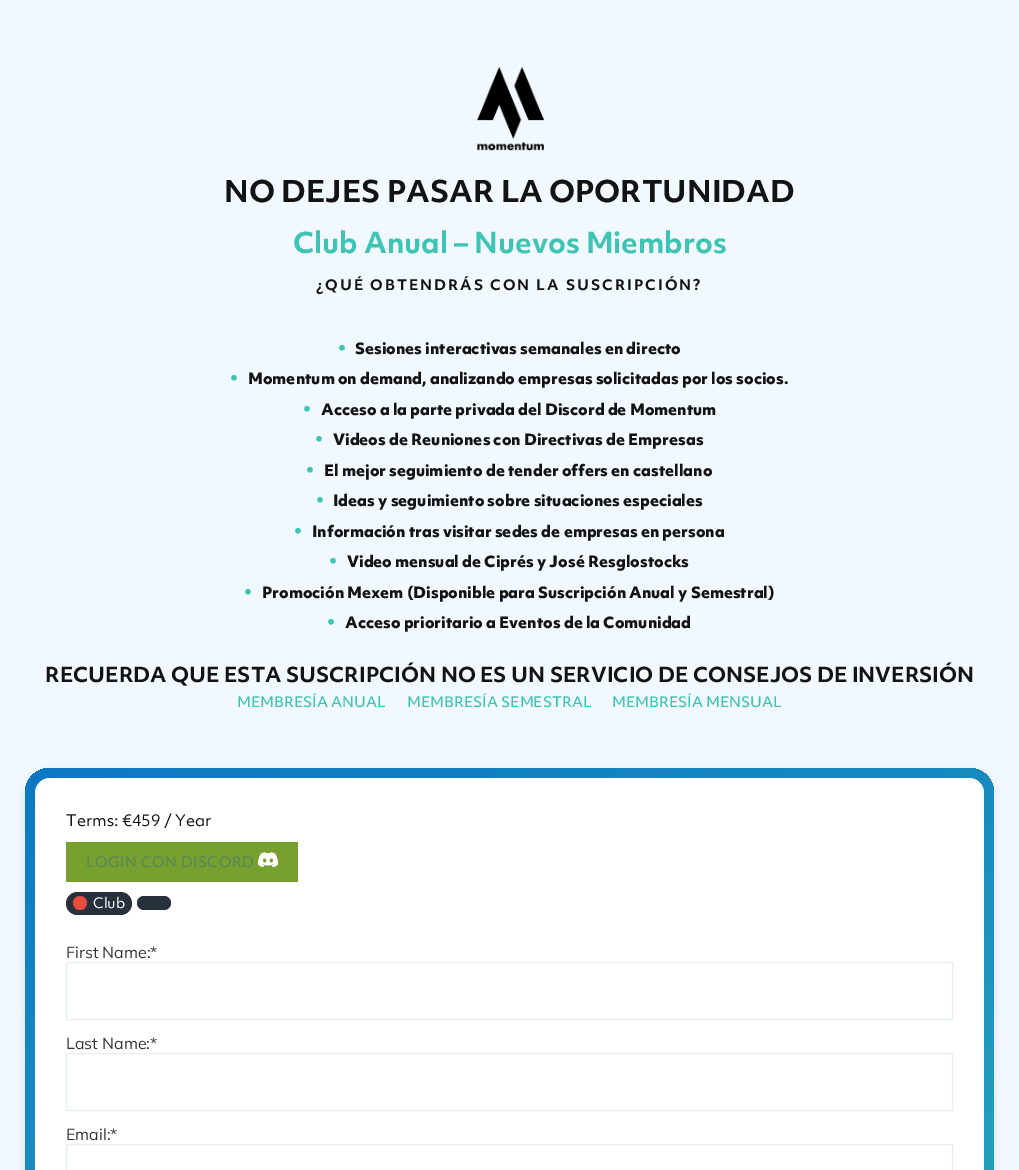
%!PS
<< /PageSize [1019 1170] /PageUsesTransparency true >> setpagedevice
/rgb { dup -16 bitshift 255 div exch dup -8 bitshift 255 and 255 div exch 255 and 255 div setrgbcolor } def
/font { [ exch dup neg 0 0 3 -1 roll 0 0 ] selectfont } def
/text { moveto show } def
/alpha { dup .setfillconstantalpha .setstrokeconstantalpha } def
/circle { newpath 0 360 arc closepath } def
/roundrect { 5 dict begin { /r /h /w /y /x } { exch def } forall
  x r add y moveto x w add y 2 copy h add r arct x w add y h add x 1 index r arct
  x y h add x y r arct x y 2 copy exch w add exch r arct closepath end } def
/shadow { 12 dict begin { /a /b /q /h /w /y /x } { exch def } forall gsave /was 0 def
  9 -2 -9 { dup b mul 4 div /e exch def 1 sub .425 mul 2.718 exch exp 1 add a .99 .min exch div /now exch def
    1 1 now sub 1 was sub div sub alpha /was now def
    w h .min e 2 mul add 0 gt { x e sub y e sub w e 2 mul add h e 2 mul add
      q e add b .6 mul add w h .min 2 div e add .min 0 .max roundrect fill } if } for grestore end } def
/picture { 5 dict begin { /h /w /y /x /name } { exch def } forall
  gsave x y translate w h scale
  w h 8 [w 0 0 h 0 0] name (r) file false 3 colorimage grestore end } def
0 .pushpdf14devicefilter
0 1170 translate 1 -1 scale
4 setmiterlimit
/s1 { /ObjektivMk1-Bold 29 font 16#131313 rgb } def
/s2 { /ObjektivMk1-Bold 28 font 16#3DC4B4 rgb } def
/s3 { /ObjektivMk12-Bold 15 font 16#131313 rgb } def
/s4 { /ObjektivMk1-Bold 20 font 16#131313 rgb } def
/s5 { /ObjektivMk1-Medium 14 font 16#3DC4B4 rgb } def
/s6 { /ObjektivMk1-Regular 15.5 font 16#131313 rgb } def
/s7 { /ObjektivMk1-Regular 14 font 16#FFFFFF rgb } def
/s8 { /Mulish-Regular 16 font 16#303135 rgb } def
16#F2F8FF rgb
0 0 1019 1170 rectfill
(pic1.raw) 477 66 68 85 picture
s1
(NO DEJES PASAR LA OPORTUNIDAD) 224 202 text
s2
(Club Anual – Nuevos Miembros) 293 253 text
/ObjektivMk1-Bold 14 font
16#131313 rgb
316 290 moveto 2 0 (¿QUÉ OBTENDRÁS CON LA SUSCRIPCIÓN?) ashow
(pic2.raw) 339 344 6 7 picture
s3
(Sesiones interactivas semanales en directo) 355 354 text
(pic2.raw) 231 374 6 7 picture
(Momentum on demand, analizando empresas solicitadas por los socios.) 248 384 text
(pic2.raw) 304 405 6 7 picture
(Acceso a la parte privada del Discord de Momentum) 321 415 text
(pic2.raw) 316 435 6 7 picture
(Videos de Reuniones con Directivas de Empresas) 333 445 text
(pic2.raw) 307 466 6 7 picture
(El mejor seguimiento de tender offers en castellano) 324 476 text
(pic2.raw) 317 496 6 7 picture
(Ideas y seguimiento sobre situaciones especiales) 333 506 text
(pic2.raw) 295 527 6 7 picture
(Información tras visitar sedes de empresas en persona) 312 537 text
(pic2.raw) 330 557 6 7 picture
(Video mensual de Ciprés y José Resglostocks) 347 567 text
(pic2.raw) 245 588 6 7 picture
(Promoción Mexem \(Disponible para Suscripción Anual y Semestral\)) 262 598 text
(pic2.raw) 328 618 6 7 picture
(Acceso prioritario a Eventos de la Comunidad) 345 628 text
s4
(RECUERDA QUE ESTA SUSCRIPCIÓN NO ES UN SERVICIO DE CONSEJOS DE INVERSIÓN) 45 682 text
s5
(MEMBRESÍA ANUAL) 237 707 text
(MEMBRESÍA SEMESTRAL) 407 707 text
(MEMBRESÍA MENSUAL) 612 707 text
16#000000 rgb
25 772 969 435 25 4 0.1 shadow
gsave 25 768 969 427 25 roundrect clip newpath
<< /ShadingType 2 /ColorSpace /DeviceRGB /Coords [269 679 750 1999] /Extend [true true] /Function << /FunctionType 2 /Domain [0 1] /C0 [0.051 0.471 0.761] /C1 [0.239 0.769 0.706] /N 1 >> >> shfill grestore
16#FFFFFF rgb
35 778 949 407 15 roundrect fill
s6
(Terms: €459 / Year) 66 826 text
16#77A02E rgb
66 842 232 40 rectfill
/ObjektivMk1-Regular 14 font
16#518264 rgb
86 867 moveto 0.5 0 (LOGIN CON DISCORD) ashow
(pic3.raw) 258 852 20 15 picture
16#28303D rgb
66 892 66 23 11.5 roundrect fill
16#E74C3C rgb
80 903 7 circle fill
s7
(Club) 93 908 text
16#28303D rgb
137 896 34 14 7 roundrect fill
s8
(First Name:*) 66 958 text
16#E3F2E5 rgb
66.5 962.5 886 57 rectstroke
s8
(Last Name:*) 66 1049 text
16#E3F2E5 rgb
66.5 1053.5 886 57 rectstroke
s8
(Email:*) 66 1140 text
16#E3F2E5 rgb
66.5 1144.5 886 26 rectstroke
.poppdf14devicefilter showpage
